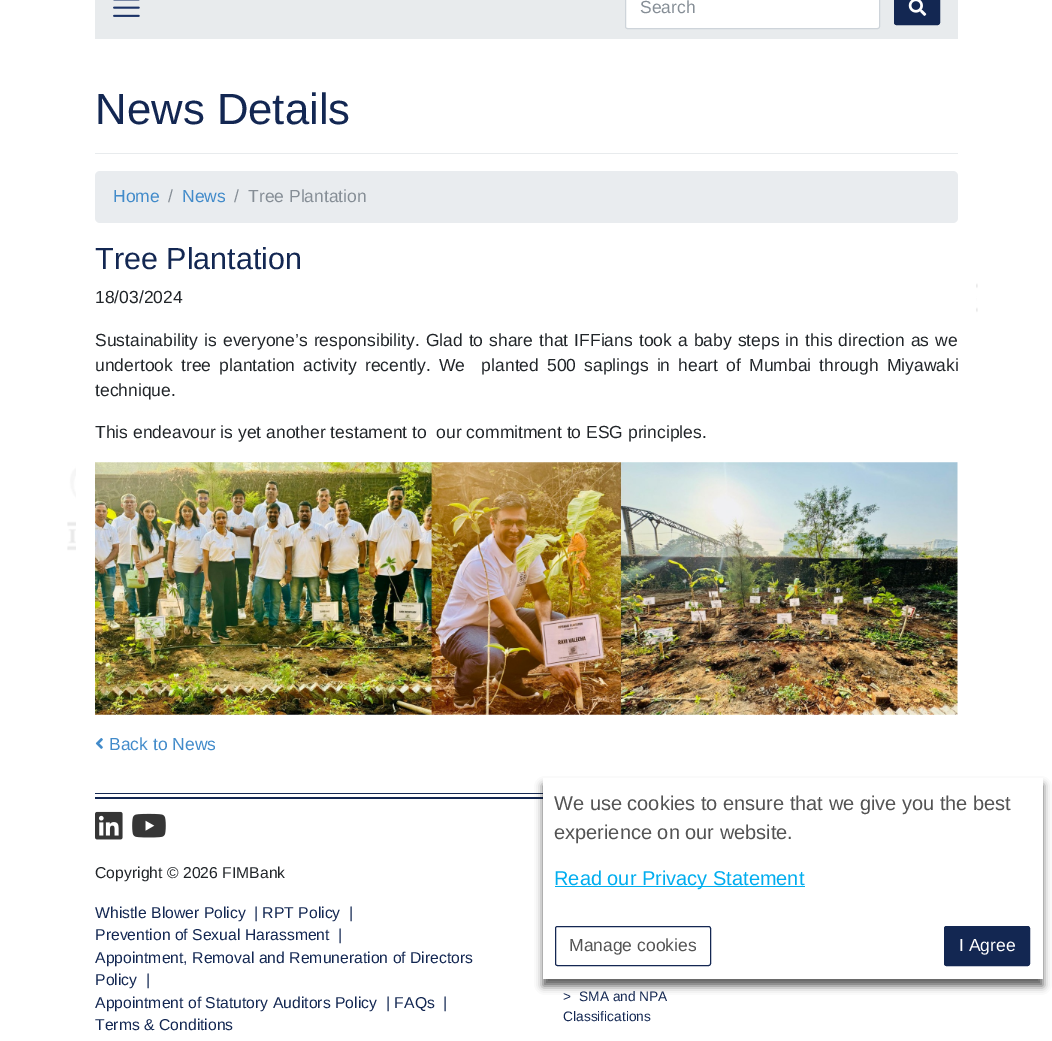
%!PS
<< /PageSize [1052 1041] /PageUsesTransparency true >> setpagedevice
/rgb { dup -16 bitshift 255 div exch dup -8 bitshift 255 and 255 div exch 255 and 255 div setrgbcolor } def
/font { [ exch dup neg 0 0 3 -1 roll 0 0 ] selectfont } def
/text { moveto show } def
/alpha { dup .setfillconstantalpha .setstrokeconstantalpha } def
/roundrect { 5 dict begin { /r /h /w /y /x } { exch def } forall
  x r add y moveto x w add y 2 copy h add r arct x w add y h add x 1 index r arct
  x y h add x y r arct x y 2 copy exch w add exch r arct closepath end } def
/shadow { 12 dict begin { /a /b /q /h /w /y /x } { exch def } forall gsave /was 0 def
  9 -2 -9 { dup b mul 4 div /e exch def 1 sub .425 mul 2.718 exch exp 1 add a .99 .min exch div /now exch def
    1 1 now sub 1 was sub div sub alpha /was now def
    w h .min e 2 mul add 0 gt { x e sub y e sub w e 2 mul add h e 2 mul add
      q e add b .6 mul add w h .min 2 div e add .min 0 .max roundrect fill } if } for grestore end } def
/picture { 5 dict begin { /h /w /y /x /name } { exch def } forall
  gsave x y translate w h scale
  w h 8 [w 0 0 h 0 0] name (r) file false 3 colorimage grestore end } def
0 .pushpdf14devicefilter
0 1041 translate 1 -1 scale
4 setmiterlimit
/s1 { /LiberationSans-Regular 17.5 font 16#868E96 rgb } def
/s2 { /LiberationSans-Regular 43.75 font 16#132752 rgb } def
/s3 { /LiberationSans-Regular 17.5 font 16#428BCA rgb } def
/s4 { /LiberationSans-Regular 30.5 font 16#132752 rgb } def
/s5 { /LiberationSans-Regular 17.5 font 16#212529 rgb } def
/s6 { /LiberationSans-Regular 15.75 font 16#212529 rgb } def
/s7 { /LiberationSans-Regular 15.75 font 16#132752 rgb } def
/s8 { /LiberationSans-Regular 13.75 font 16#132752 rgb } def
/s9 { /LiberationSans-Regular 20 font 16#535353 rgb } def
/s10 { /LiberationSans-Regular 20 font 16#00ADEF rgb } def
/s11 { /LiberationSans-Regular 17.5 font 16#535353 rgb } def
/s12 { /LiberationSans-Regular 17.5 font 16#FFFFFF rgb } def
16#FFFFFF rgb
0 0 1052 1041 rectfill
(pic1.raw) 67 158 911 883 picture
76 158 900 883 rectfill
16#E8EBED rgb
95 0 863 39 rectfill
(pic2.raw) 113 0 27 17 picture
16#FFFFFF rgb
626 -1 253 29 1 roundrect fill
16#CED4DA rgb
625.5 -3.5 254 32 2 roundrect stroke
s1
(Search) 640 13 text
16#132752 rgb
894.5 -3.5 45 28 2 roundrect gsave fill grestore
stroke
(pic3.raw) 908 0 19 16 picture
16#E8EBED rgb
95 153 863 1 rectfill
s2
(News Details) 95 124 text
16#E9ECEF rgb
95 171 863 52 5 roundrect fill
s3
(Home) 113 202 text
s1
(/) 168 202 text
s3
(News) 182 202 text
s1
(/) 234 202 text
(Tree Plantation) 248 202 text
s4
(Tree Plantation) 95 269 text
s5
(18/03/2024) 95 303 text
95 346 moveto 1.2 0 32 (Sustainability is everyone’s responsibility. Glad to share that IFFians took a baby steps in this direction as we) widthshow
95 371 moveto 3.25 0 32 (undertook tree plantation activity recently. We  planted 500 saplings in heart of Mumbai through Miyawaki) widthshow
(technique.) 95 396 text
(This endeavour is yet another testament to  our commitment to ESG principles.) 95 438 text
(pic4.raw) 95 462 863 253 picture
(pic5.raw) 95 738 8 11 picture
s3
(Back to News) 109 750 text
16#132752 rgb
95 797 448 2 rectfill
95 793 448 1 rectfill
(pic6.raw) 95 811 28 29 picture
(pic7.raw) 132 813 34 25 picture
s6
(Copyright © 2026 FIMBank) 95 878 text
s7
(Whistle Blower Policy) 95 918 text
(| RPT Policy) 254 918 text
(|) 349 918 text
(Prevention of Sexual Harassment) 95 940 text
(|) 338 940 text
(Appointment, Removal and Remuneration of Directors) 95 963 text
(Policy) 95 985 text
(|) 146 985 text
(Appointment of Statutory Auditors Policy) 95 1008 text
(| FAQs) 386 1008 text
(|) 443 1008 text
(Terms & Conditions) 95 1030 text
s8
(>) 563 1001 text
(SMA and NPA) 579 1001 text
(Classifications) 563 1021 text
16#000000 rgb
543 785 500 201 0 4 0.63 shadow
16#FFFFFF rgb
543 778 500 201 rectfill
s9
(We use cookies to ensure that we give you the best) 554 810 text
(experience on our website.) 554 839 text
16#00ADEF rgb
555 886 250 1 rectfill
(Read our Privacy Statement) 554 885 text
16#142752 rgb
555.5 926.5 155 39 2 roundrect stroke
s11
(Manage cookies) 569 951 text
16#132752 rgb
944.5 926.5 85 39 2 roundrect gsave fill grestore
stroke
s12
(I Agree) 959 951 text
.poppdf14devicefilter showpage
